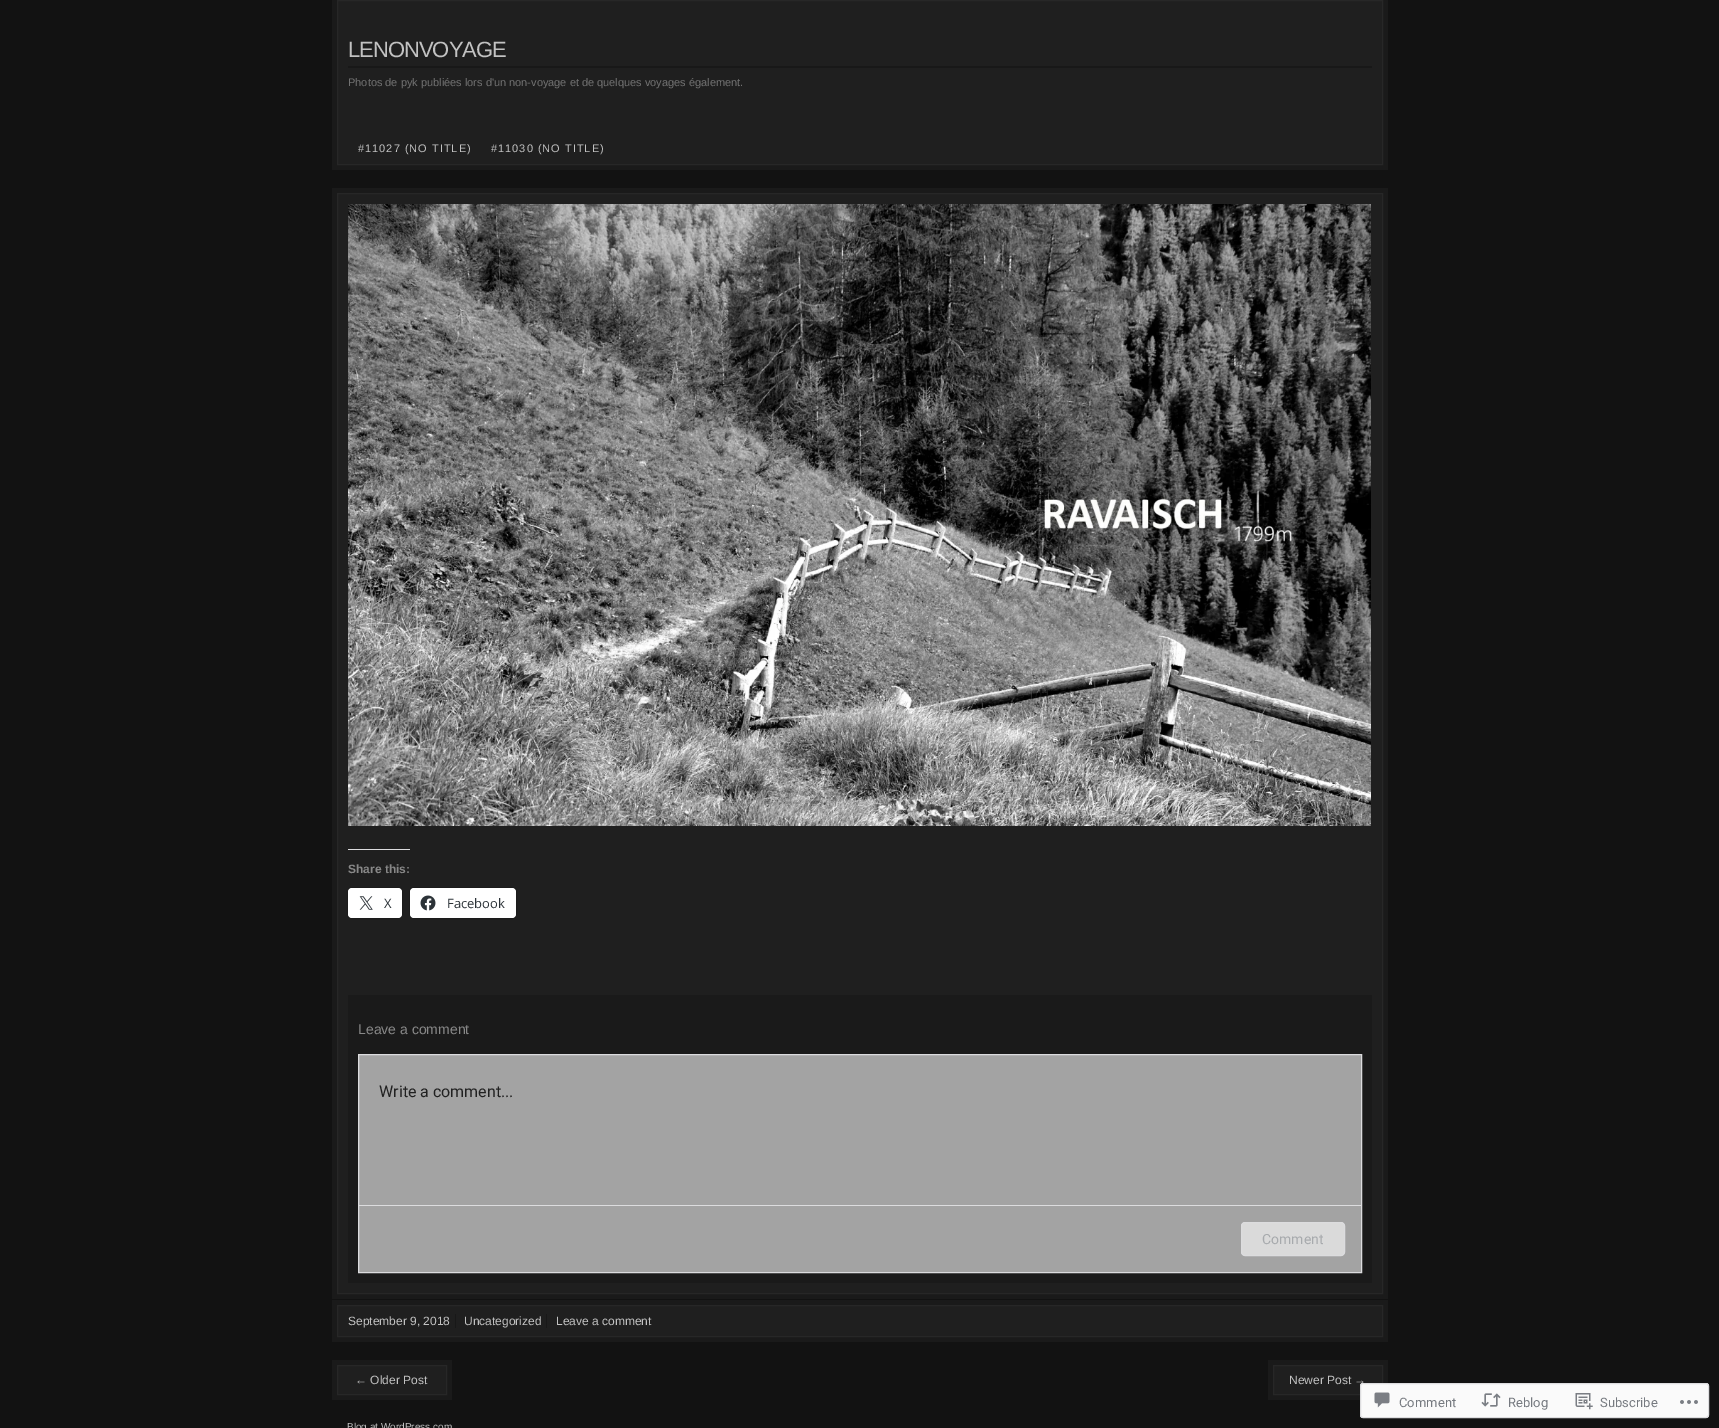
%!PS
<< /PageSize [1719 1428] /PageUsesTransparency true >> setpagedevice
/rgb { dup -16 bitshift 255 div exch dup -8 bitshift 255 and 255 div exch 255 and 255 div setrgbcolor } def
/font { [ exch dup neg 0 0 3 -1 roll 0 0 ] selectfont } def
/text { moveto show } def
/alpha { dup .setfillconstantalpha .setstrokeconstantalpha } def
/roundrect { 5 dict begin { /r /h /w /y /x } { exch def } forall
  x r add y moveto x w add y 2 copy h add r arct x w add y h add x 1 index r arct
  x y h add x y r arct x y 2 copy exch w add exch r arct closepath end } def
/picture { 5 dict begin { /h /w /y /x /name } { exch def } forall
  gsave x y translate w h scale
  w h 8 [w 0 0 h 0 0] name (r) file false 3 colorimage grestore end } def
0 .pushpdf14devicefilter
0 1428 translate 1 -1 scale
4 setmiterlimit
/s1 { /LiberationSans-Regular 11 font 16#727272 rgb } def
/s2 { /LiberationSans-Bold 12 font 16#888888 rgb } def
/s3 { /OpenSans-Regular 13 font 16#2C3338 rgb } def
/s4 { /LiberationSans-Regular 14 font 16#888888 rgb } def
/s5 { /Roboto-Regular 16 font 16#212121 rgb } def
/s6 { /Roboto-Regular 14 font 16#A7AAAD rgb } def
/s7 { /LiberationSans-Regular 12 font 16#C2C2C2 rgb } def
/s8 { /LiberationSans-Regular 10 font 16#C2C2C2 rgb } def
/s9 { /Roboto-Regular 13 font 16#767A80 rgb } def
16#121212 rgb
0 0 1719 1428 rectfill
16#1A1A1A rgb
332 0 1056 170 rectfill
16#1F1F1F rgb
337.5 0.5 moveto 1382.5 0.5 lineto 1382.5 164.5 lineto 337.5 164.5 lineto closepath gsave fill grestore
16#272727 rgb
stroke
16#181818 rgb
348 66 1024 2 rectfill
/LiberationSans-Regular 22 font
16#C2C2C2 rgb
348 57 moveto -1 0 (LENONVOYAGE) ashow
s1
(Photos de pyk publiées lors d'un non-voyage et de quelques voyages également.) 348 86 text
16#C2C2C2 rgb
358 152 moveto 1 0 (#11027 \(NO TITLE\)) ashow
491 152 moveto 1 0 (#11030 \(NO TITLE\)) ashow
16#1A1A1A rgb
332 188 1056 1111 rectfill
16#1F1F1F rgb
337.5 193.5 moveto 1382.5 193.5 lineto 1382.5 1293.5 lineto 337.5 1293.5 lineto closepath gsave fill grestore
16#272727 rgb
stroke
(pic1.raw) 348 204 1023 622 picture
16#DCDCDE rgb
348 849 62 1 rectfill
s2
(Share this:) 348 873 text
16#1B1B1B rgb
347.5 887.5 55 31 4.5 roundrect stroke
16#FFFFFF rgb
348 888 54 30 4 roundrect fill
(pic2.raw) 359 896 14 14 picture
s3
(X) 384 908 text
16#1B1B1B rgb
409.5 887.5 107 31 4.5 roundrect stroke
16#FFFFFF rgb
410 888 106 30 4 roundrect fill
(pic3.raw) 420 895 16 16 picture
s3
(Facebook) 447 908 text
16#1A1A1A rgb
348 995 1024 288 rectfill
s4
(Leave a comment) 358 1034 text
16#A3A3A3 rgb
358.5 1054.5 moveto 1361.5 1054.5 lineto 1361.5 1272.5 lineto 358.5 1272.5 lineto closepath gsave fill grestore
16#DCDCDE rgb
stroke
s5
(Write a comment...) 379 1097 text
16#DCDCDE rgb
359 1205 1002 1 rectfill
16#DADADA rgb
1241.5 1222.5 103 33 3.5 roundrect gsave fill grestore
16#DCDCDE rgb
stroke
s6
(Comment) 1262 1244 text
16#1A1A1A rgb
332 1300 1056 42 rectfill
16#1F1F1F rgb
337.5 1305.5 moveto 1382.5 1305.5 lineto 1382.5 1336.5 lineto 337.5 1336.5 lineto closepath gsave fill grestore
16#272727 rgb
stroke
s7
(September 9, 2018) 348 1325 text
16#181818 rgb
455 1314 1 14 rectfill
s7
(Uncategorized) 464 1325 text
16#181818 rgb
546 1314 1 14 rectfill
s7
(Leave a comment) 556 1325 text
16#1A1A1A rgb
332 1360 120 40 rectfill
16#1F1F1F rgb
337.5 1365.5 moveto 446.5 1365.5 lineto 446.5 1394.5 lineto 337.5 1394.5 lineto closepath gsave fill grestore
16#272727 rgb
stroke
s7
(← Older Post) 355 1384 text
16#1A1A1A rgb
1268 1360 120 40 rectfill
16#1F1F1F rgb
1273.5 1365.5 moveto 1382.5 1365.5 lineto 1382.5 1394.5 lineto 1273.5 1394.5 lineto closepath gsave fill grestore
16#272727 rgb
stroke
s7
(Newer Post →) 1289 1384 text
s8
(Blog at WordPress.com) 347 1430 text
0.98 alpha
16#FFFFFF rgb
1360 1383 349 35 3 roundrect fill
16#DCDCDE rgb
1360.5 1383.5 348 34 2.5 roundrect stroke
1 alpha
(pic4.raw) 1374 1392 16 16 picture
s9
(Comment) 1399 1407 text
(pic5.raw) 1481 1393 20 14 picture
(Reblog) 1508 1407 text
(pic6.raw) 1575 1393 18 17 picture
(Subscribe) 1600 1407 text
(pic7.raw) 1680 1400 18 4 picture
.poppdf14devicefilter showpage
